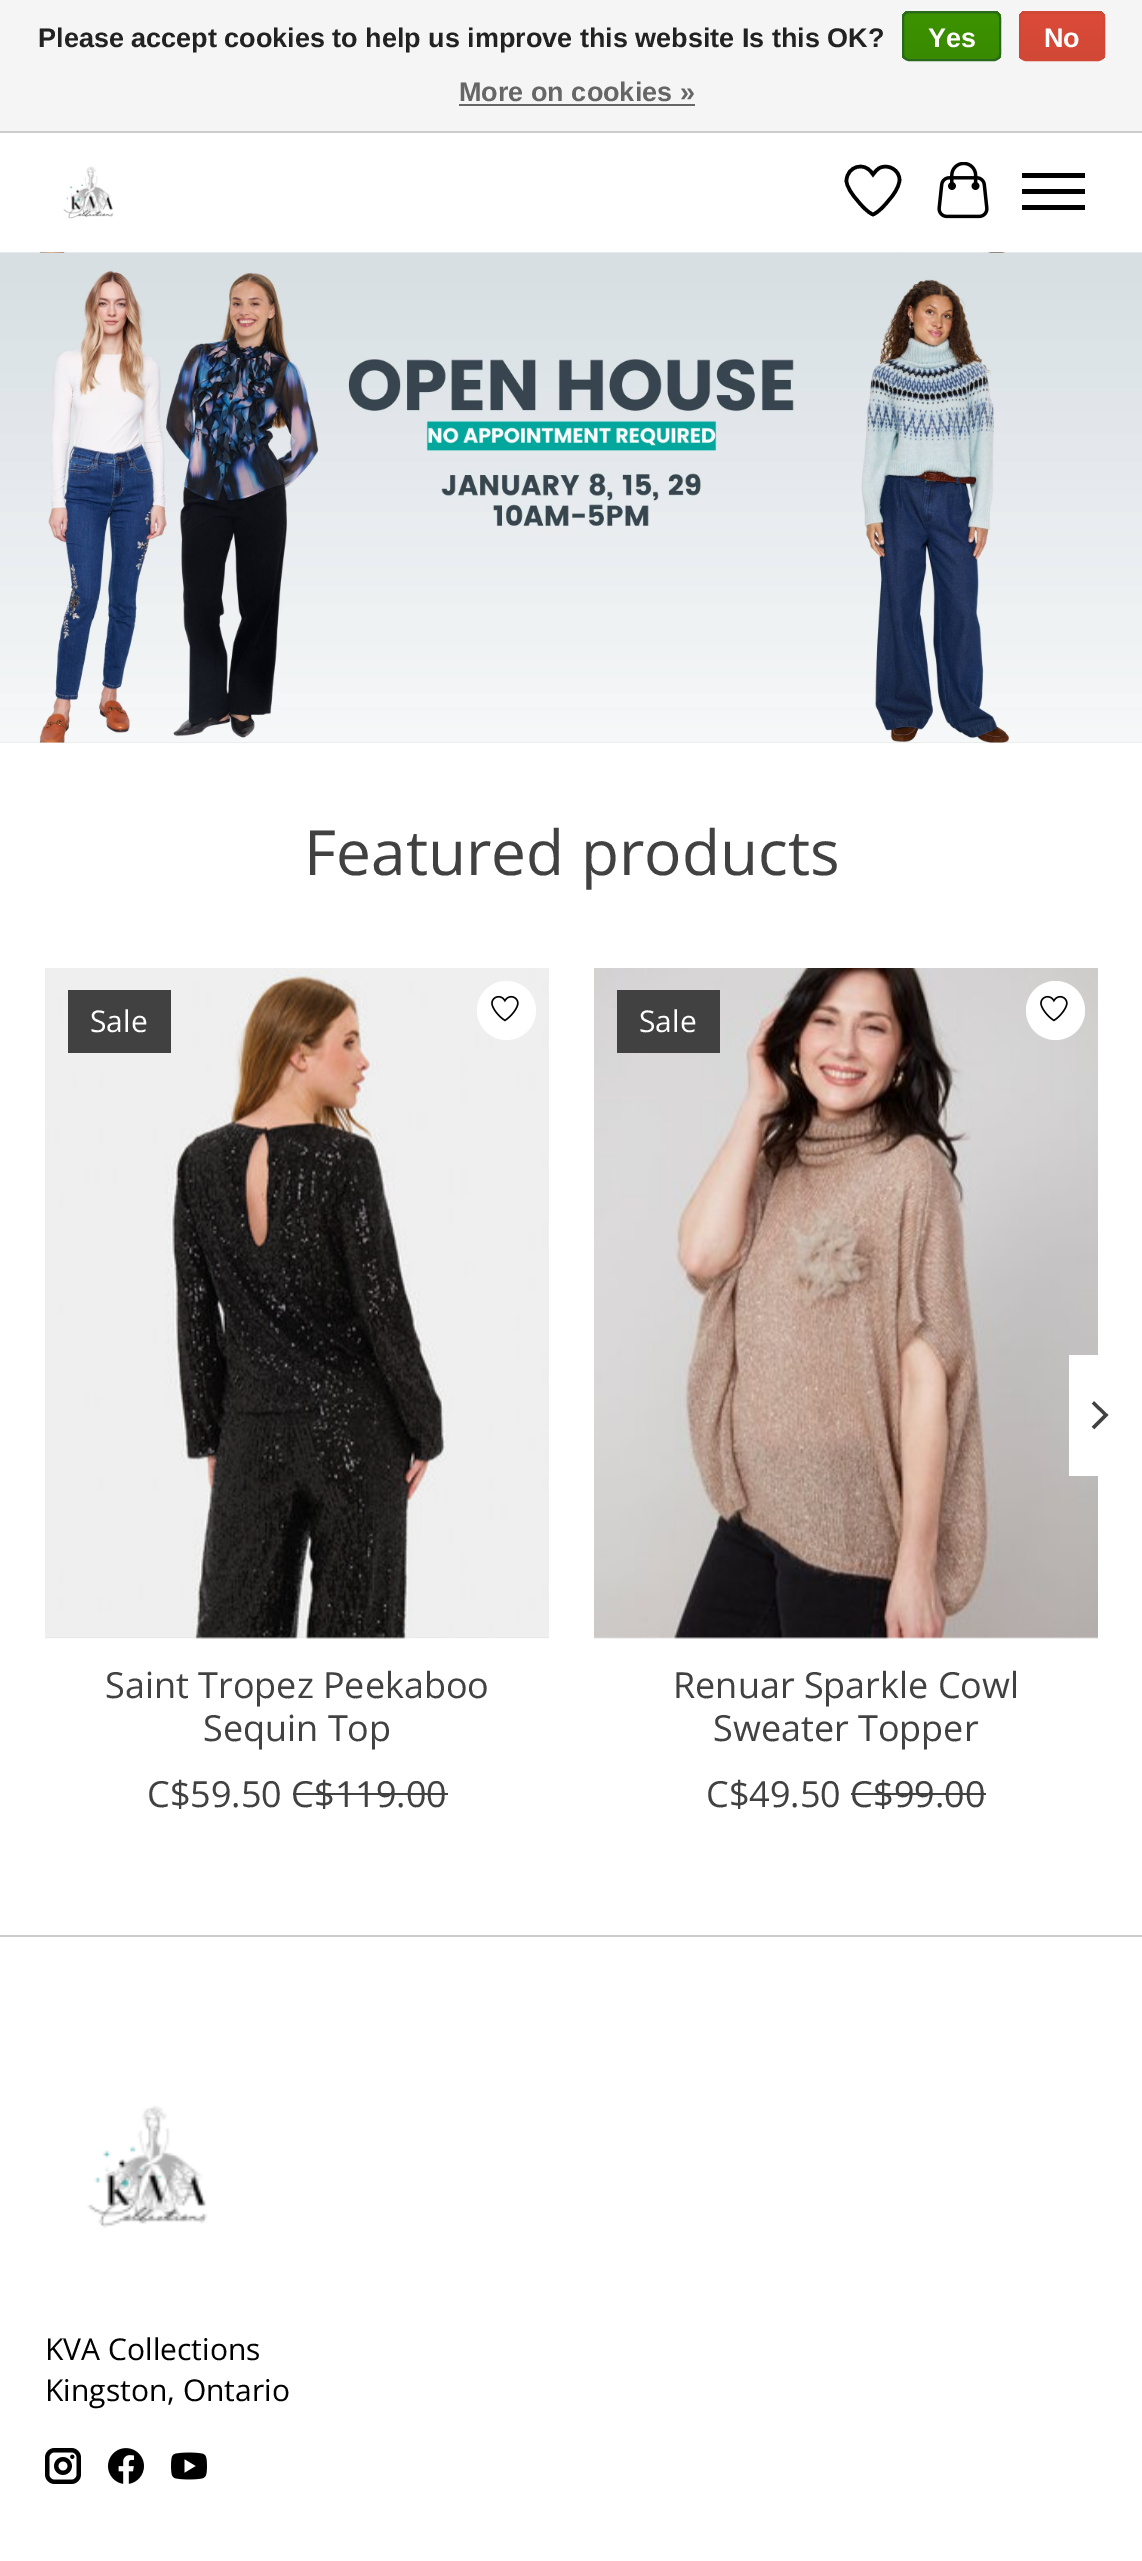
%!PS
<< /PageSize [1142 2561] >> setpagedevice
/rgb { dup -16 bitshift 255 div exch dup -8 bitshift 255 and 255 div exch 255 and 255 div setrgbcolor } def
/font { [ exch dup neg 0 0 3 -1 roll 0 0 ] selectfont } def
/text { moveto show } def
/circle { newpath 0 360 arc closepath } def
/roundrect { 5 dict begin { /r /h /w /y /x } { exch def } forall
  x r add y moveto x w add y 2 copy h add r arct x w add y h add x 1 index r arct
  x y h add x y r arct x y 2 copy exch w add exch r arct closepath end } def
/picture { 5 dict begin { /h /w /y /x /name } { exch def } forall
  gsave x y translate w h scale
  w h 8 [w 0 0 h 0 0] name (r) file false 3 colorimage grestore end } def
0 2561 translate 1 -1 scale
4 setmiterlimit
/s1 { /LiberationSans-Bold 27 font 16#222222 rgb } def
/s2 { /LiberationSans-Bold 27 font 16#FFFFFF rgb } def
/s3 { /LiberationSans-Bold 27 font 16#666666 rgb } def
/s4 { /OpenSans-Regular 62.25 font 16#414141 rgb } def
/s5 { /OpenSans-Regular 30 font 16#FFFFFF rgb } def
/s6 { /OpenSans-Regular 36 font 16#414141 rgb } def
/s7 { /OpenSans-Regular 30 font 16#000000 rgb } def
16#FFFFFF rgb
0 0 1142 2561 rectfill
16#F5F5F5 rgb
0 0 1142 131 rectfill
16#CCCCCC rgb
0 131 1142 2 rectfill
s1
(Please accept cookies to help us improve this website Is this OK?) 38 47 text
gsave
902 11 99 50 7 roundrect clip newpath
gsave 902 11 moveto 1001 11 lineto 1001 14 lineto 902 14 lineto closepath clip newpath
<< /ShadingType 2 /ColorSpace /DeviceRGB /Coords [952 -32 952 14] /Extend [true true] /Function << /FunctionType 2 /Domain [0 1] /C0 [0.235 0.576 0] /C1 [0.224 0.541 0] /N 1 >> >> shfill grestore
gsave 902 14 moveto 1001 14 lineto 1001 59 lineto 902 59 lineto closepath clip newpath
<< /ShadingType 2 /ColorSpace /DeviceRGB /Coords [952 13 952 59] /Extend [true true] /Function << /FunctionType 2 /Domain [0 1] /C0 [0.235 0.576 0] /C1 [0.224 0.541 0] /N 1 >> >> shfill grestore
grestore
16#29691D rgb
2 setlinewidth
903 12 97 48 6 roundrect stroke
s2
(Yes) 928 47 text
gsave
1019 11 86 50 7 roundrect clip newpath
gsave 1019 11 moveto 1105 11 lineto 1105 14 lineto 1019 14 lineto closepath clip newpath
<< /ShadingType 2 /ColorSpace /DeviceRGB /Coords [1062 -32 1062 14] /Extend [true true] /Function << /FunctionType 2 /Domain [0 1] /C0 [0.863 0.29 0.22] /C1 [0.82 0.282 0.212] /N 1 >> >> shfill grestore
gsave 1019 14 moveto 1105 14 lineto 1105 59 lineto 1019 59 lineto closepath clip newpath
<< /ShadingType 2 /ColorSpace /DeviceRGB /Coords [1062 13 1062 59] /Extend [true true] /Function << /FunctionType 2 /Domain [0 1] /C0 [0.863 0.29 0.22] /C1 [0.82 0.282 0.212] /N 1 >> >> shfill grestore
grestore
16#D14836 rgb
1020 12 84 48 6 roundrect stroke
s2
(No) 1044 47 text
s3
(More on cookies ») 459 101 text
459 104 236 2 rectfill
(pic1.raw) 63 166 51 53 picture
16#000000 rgb
3.5 setlinewidth
871.5 172.5 moveto 873 174.5 lineto 875 172 876.5 169.5 879.5 168 curveto 888 163.5 900 170 899.5 180.5 curveto 898.5 188 893.5 195 889 200 curveto 885 205 879 212 873 214.5 curveto 867 212 861 205 857 200 curveto 853 195.5 846 186.5 846.5 180 curveto 847.5 166.5 864 161.5 871.5 172.5 curveto closepath stroke
(pic2.raw) 937 162 52 57 picture
1022 189 63 5 rectfill
1022 173 63 5 rectfill
1022 205 63 5 rectfill
16#E3E3E3 rgb
0 742 1142 1 rectfill
(pic3.raw) 0 252 1142 491 picture
s4
(Featured products) 304 875 text
16#E3E3E3 rgb
45 1637 504 1 rectfill
(pic4.raw) 45 968 504 671 picture
16#FFFFFF rgb
506.5 1010.5 29.5 circle fill
(pic5.raw) 491 995 28 27 picture
16#414141 rgb
68 990 103 63 rectfill
s5
(Sale) 90 1032 text
s6
(Saint Tropez Peekaboo) 105 1698 text
(Sequin Top) 203 1741 text
(C$59.50 C$119.00) 147 1807 text
293 1793 155 2 rectfill
16#E3E3E3 rgb
594 1637 504 1 rectfill
(pic6.raw) 594 968 504 671 picture
16#FFFFFF rgb
1055.5 1010.5 29.5 circle fill
(pic5.raw) 1040 995 28 27 picture
16#414141 rgb
617 990 103 63 rectfill
s5
(Sale) 639 1032 text
s6
(Renuar Sparkle Cowl) 673 1698 text
(Sweater Topper) 713 1741 text
(C$49.50 C$99.00) 706 1807 text
851 1793 135 2 rectfill
16#FFFFFF rgb
1069 1355 29 121 rectfill
16#414141 rgb
3.2 setlinewidth
1093 1428 moveto 1106 1415 lineto 1093 1402.5 lineto stroke
16#CCCCCC rgb
0 1935 1142 2 rectfill
(pic7.raw) 87 2105 121 123 picture
s7
(KVA Collections) 45 2360 text
(Kingston, Ontario) 45 2401 text
(pic8.raw) 45 2448 36 36 picture
(pic9.raw) 108 2448 36 36 picture
(pic10.raw) 171 2452 36 28 picture
showpage
